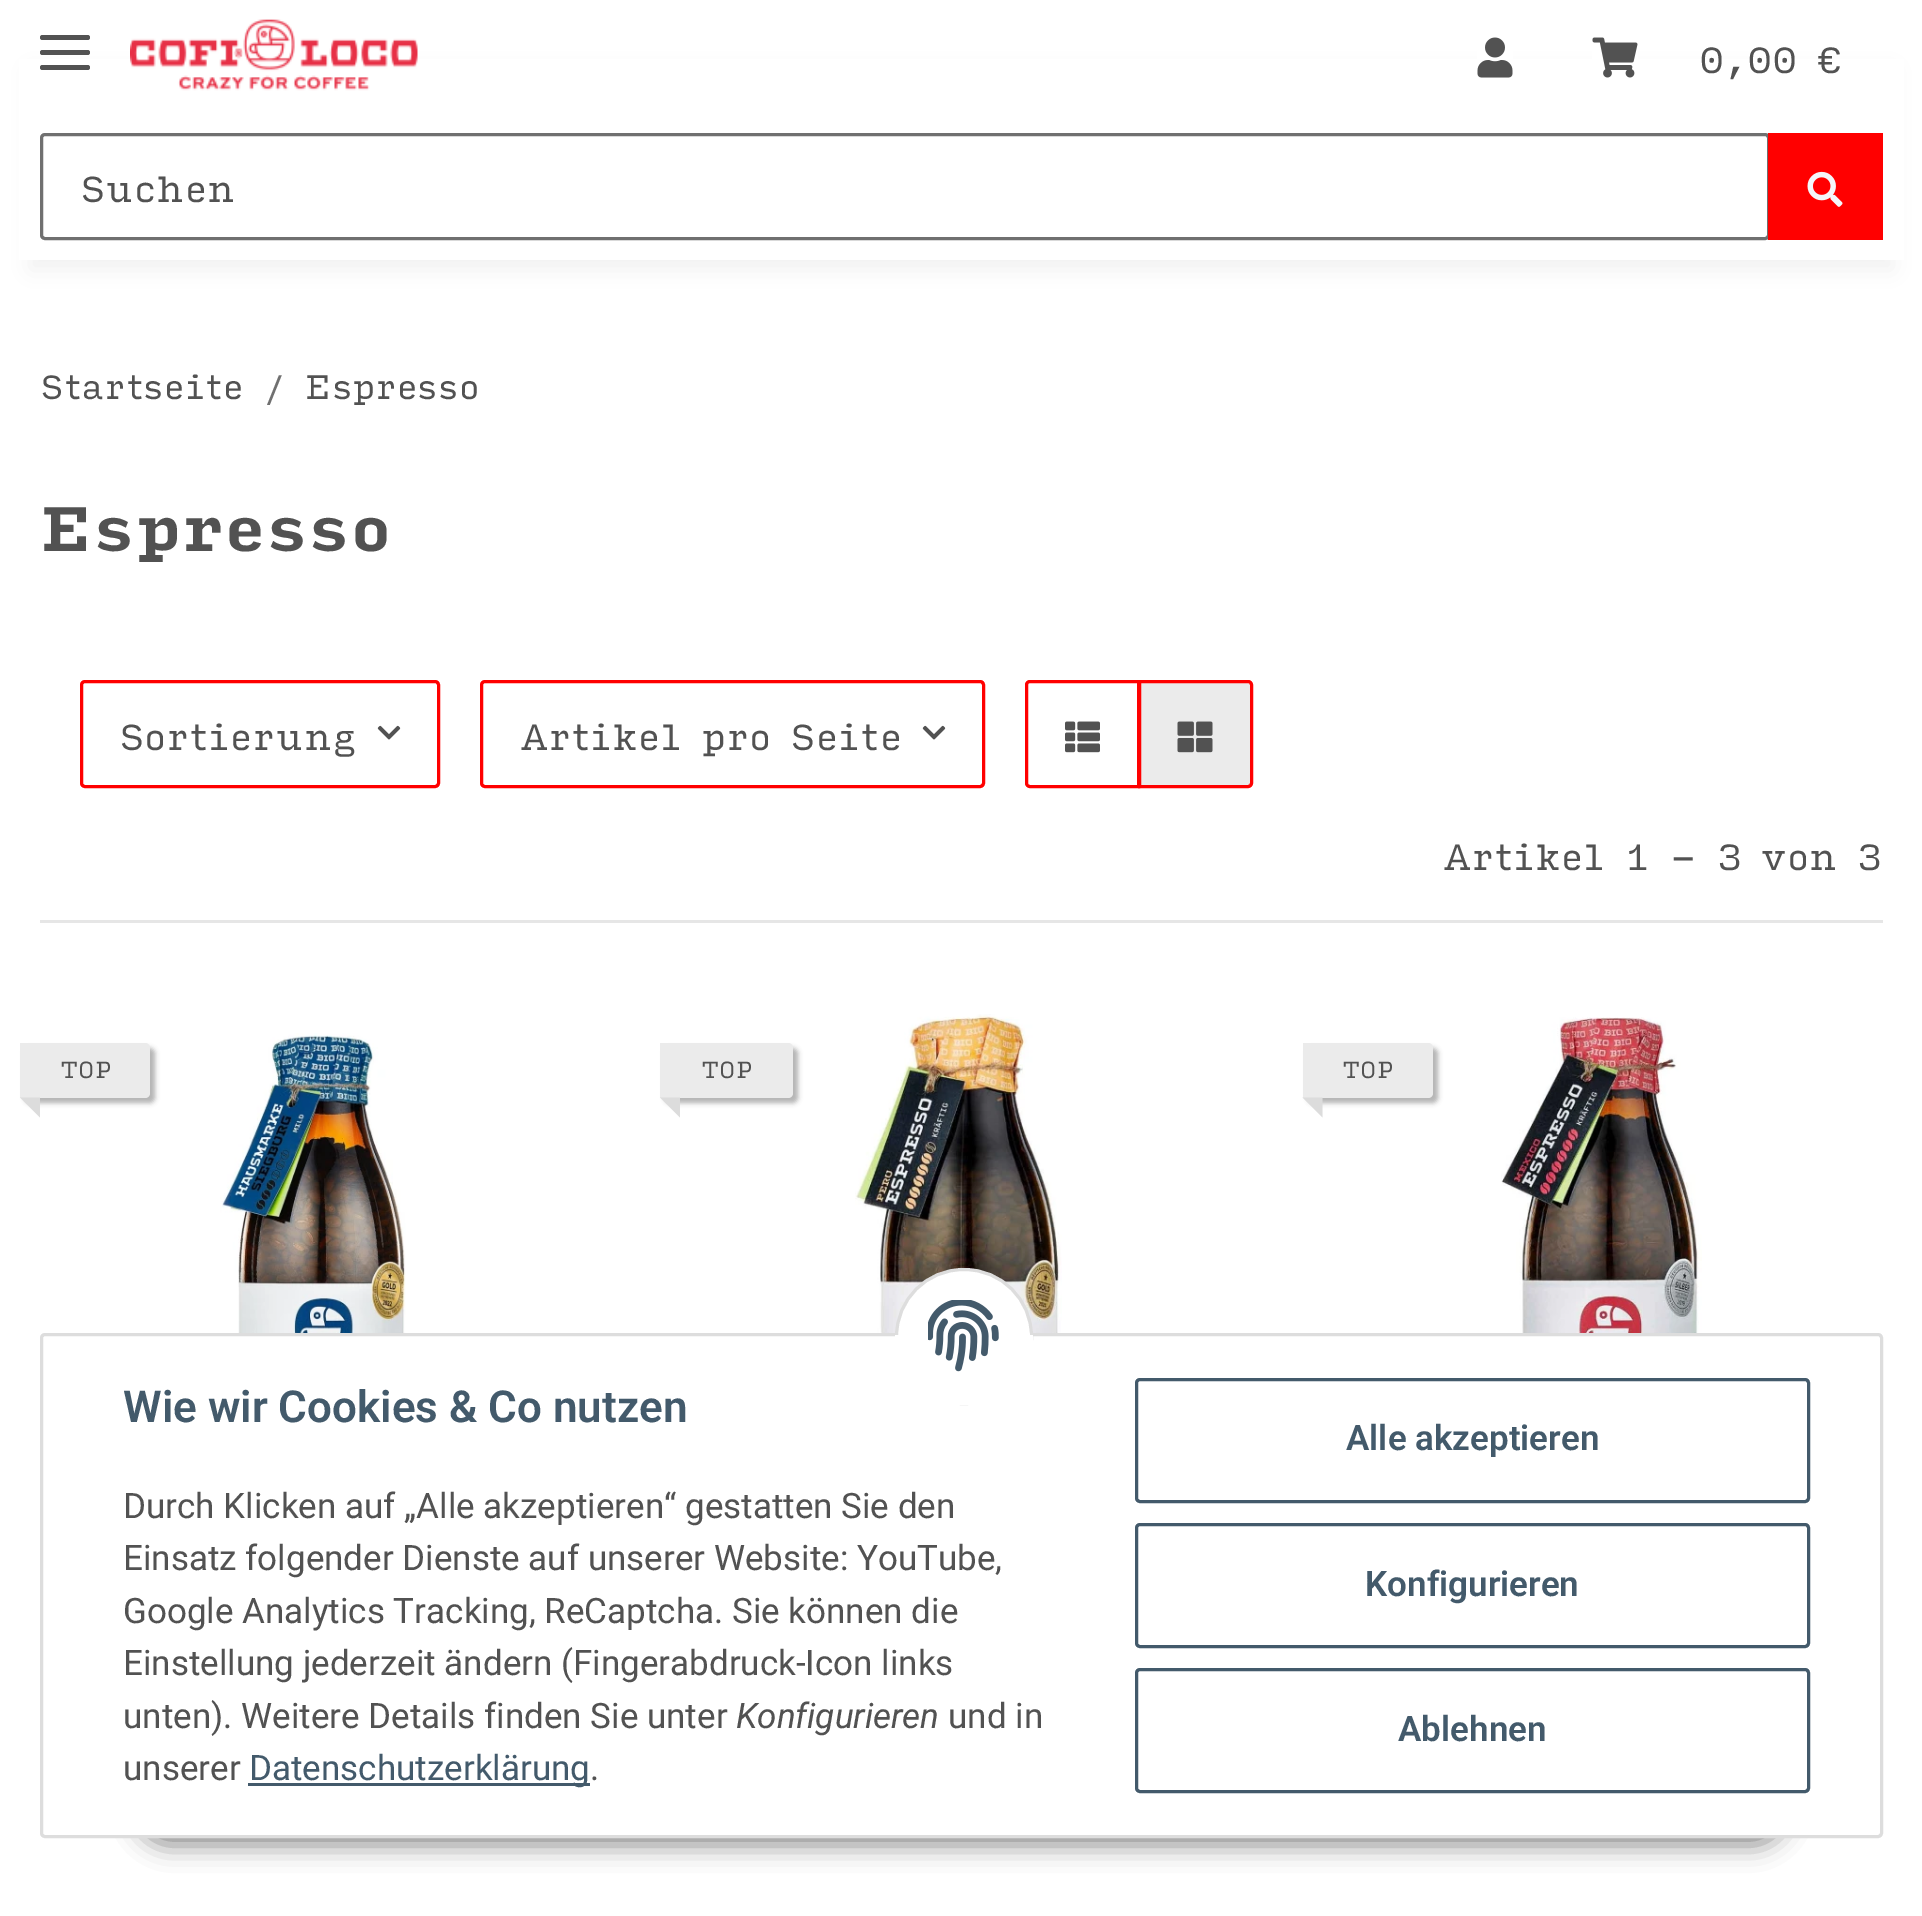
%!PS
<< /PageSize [1922 1916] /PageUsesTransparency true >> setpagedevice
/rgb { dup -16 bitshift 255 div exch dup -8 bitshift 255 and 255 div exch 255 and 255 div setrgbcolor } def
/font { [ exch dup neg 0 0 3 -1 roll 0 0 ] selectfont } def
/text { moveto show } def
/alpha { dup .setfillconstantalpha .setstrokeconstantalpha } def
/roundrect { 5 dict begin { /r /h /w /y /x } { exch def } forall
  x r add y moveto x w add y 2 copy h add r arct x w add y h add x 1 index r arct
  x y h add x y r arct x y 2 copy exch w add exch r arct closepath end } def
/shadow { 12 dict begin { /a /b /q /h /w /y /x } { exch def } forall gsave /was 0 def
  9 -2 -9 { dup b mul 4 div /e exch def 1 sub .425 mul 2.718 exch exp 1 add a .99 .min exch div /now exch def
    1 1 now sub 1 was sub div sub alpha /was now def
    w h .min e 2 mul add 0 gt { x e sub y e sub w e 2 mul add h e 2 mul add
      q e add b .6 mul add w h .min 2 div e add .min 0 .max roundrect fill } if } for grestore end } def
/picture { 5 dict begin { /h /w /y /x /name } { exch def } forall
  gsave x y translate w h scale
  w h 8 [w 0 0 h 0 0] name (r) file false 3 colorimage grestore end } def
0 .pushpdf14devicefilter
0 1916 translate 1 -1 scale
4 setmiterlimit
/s1 { /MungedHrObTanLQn-Regular 35 font 16#525252 rgb } def
/s2 { /MungedHrObTanLQn-Regular 32.5 font 16#525252 rgb } def
/s3 { /MungedHrObTanLQn-Regular 32.5 font 16#707070 rgb } def
/s4 { /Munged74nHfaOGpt-Bold 60 font 16#525252 rgb } def
/s5 { /MungedHrObTanLQn-Regular 22.5 font 16#525252 rgb } def
/s6 { /Roboto-SemiBold 44 font 16#435A6B rgb } def
/s7 { /Roboto-Regular 35 font 16#525252 rgb } def
/s8 { /Roboto-Italic 35 font 16#525252 rgb } def
/s9 { /Roboto-Regular 35 font 16#435A6B rgb } def
/s10 { /Roboto-SemiBold 35 font 16#435A6B rgb } def
16#FFFFFF rgb
0 0 1922 1916 rectfill
16#000000 rgb
30 70 1863 200 0 11 0.06 shadow
16#FFFFFF rgb
19 59 1885 201 rectfill
16#525252 rgb
40 50 50 5 2.5 roundrect fill
40 35 50 5 2.5 roundrect fill
40 65 50 5 2.5 roundrect fill
(pic1.raw) 130 19 288 72 picture
(pic2.raw) 1477 37 36 41 picture
(pic3.raw) 1592 37 46 41 picture
s1
(0,00 €) 1699 73 text
16#707070 rgb
3 setlinewidth
41.5 134.5 1727 104 3.5 roundrect stroke
s1
(Suchen) 80 202 text
16#FF0000 rgb
1768 133 115 107 rectfill
(pic4.raw) 1807 171 36 36 picture
s2
(Startseite) 40 399 text
s3
(/) 264 399 text
s2
(Espresso) 305 399 text
s4
(Espresso) 40 551 text
16#FF0000 rgb
81.5 681.5 357 105 3.5 roundrect stroke
s1
(Sortierung) 119 750 text
(pic5.raw) 377 725 24 15 picture
16#FF0000 rgb
481.5 681.5 502 105 3.5 roundrect stroke
s1
(Artikel pro Seite) 520 750 text
(pic5.raw) 922 725 24 15 picture
16#FF0000 rgb
1030 681.5 moveto 1138.5 681.5 lineto 1138.5 786.5 lineto 1030 786.5 lineto 1028 786.5 1026.5 785 1026.5 783 curveto 1026.5 685 lineto 1026.5 683 1028 681.5 1030 681.5 curveto closepath stroke
(pic6.raw) 1065 721 35 32 picture
16#EBEBEB rgb
1139.5 681.5 moveto 1248 681.5 lineto 1250 681.5 1251.5 683 1251.5 685 curveto 1251.5 783 lineto 1251.5 785 1250 786.5 1248 786.5 curveto 1139.5 786.5 lineto closepath gsave fill grestore
16#FF0000 rgb
stroke
(pic7.raw) 1177 721 36 32 picture
s1
(Artikel 1 - 3 von 3) 1443 870 text
16#E6E6E6 rgb
40 920 1843 3 rectfill
16#000000 rgb
25 1048 130 55 5 2.5 0.3 shadow
16#EBEBEB rgb
20 1043 moveto 145 1043 lineto 148 1043 150 1045 150 1048 curveto 150 1093 lineto 150 1096 148 1098 145 1098 curveto 20 1098 lineto closepath fill
s5
(TOP) 60 1078 text
16#DCDCDC rgb
40 1097.5 moveto 40 1117.5 lineto 20 1097.5 lineto closepath fill
(pic8.raw) 220 1033 186 300 picture
16#000000 rgb
665 1048 133 55 5 2.5 0.3 shadow
16#EBEBEB rgb
660 1043 moveto 788 1043 lineto 791 1043 793 1045 793 1048 curveto 793 1093 lineto 793 1096 791 1098 788 1098 curveto 660 1098 lineto closepath fill
s5
(TOP) 701 1078 text
16#DCDCDC rgb
680 1097.5 moveto 680 1117.5 lineto 660 1097.5 lineto closepath fill
(pic9.raw) 855 1014 207 319 picture
16#000000 rgb
1308 1048 130 55 5 2.5 0.3 shadow
16#EBEBEB rgb
1303 1043 moveto 1428 1043 lineto 1431 1043 1433 1045 1433 1048 curveto 1433 1093 lineto 1433 1096 1431 1098 1428 1098 curveto 1303 1098 lineto closepath fill
s5
(TOP) 1342 1078 text
16#DCDCDC rgb
1322.5 1097.5 moveto 1322.5 1117.5 lineto 1302.5 1097.5 lineto closepath fill
(pic10.raw) 1501 1017 201 316 picture
16#000000 rgb
135 1765 1653 80 40 12.5 0.45 shadow
16#FFFFFF rgb
41.5 1334.5 1840 502 3.5 roundrect gsave fill grestore
16#DDDDDD rgb
stroke
16#FFFFFF rgb
896.5 1269.5 135 134 67 roundrect gsave fill grestore
16#DDDDDD rgb
stroke
16#FFFFFF rgb
895 1335 138 70 rectfill
(pic11.raw) 928 1300 71 72 picture
s6
(Wie wir Cookies & Co nutzen) 123 1422 text
s7
(Durch Klicken auf „Alle akzeptieren“ gestatten Sie den) 123 1518 text
(Einsatz folgender Dienste auf unserer Website: YouTube,) 123 1570 text
(Google Analytics Tracking, ReCaptcha. Sie können die) 123 1623 text
(Einstellung jederzeit ändern \(Fingerabdruck-Icon links) 123 1675 text
(unten\). Weitere Details finden Sie unter) 123 1728 text
s8
(Konfigurieren) 736 1728 text
s7
(und in) 948 1728 text
(unserer) 123 1780 text
16#435A6B rgb
248 1783 342 3 rectfill
(Datenschutzerklärung) 249 1780 text
s7
(.) 590 1780 text
16#435A6B rgb
1136.5 1379.5 672 122 3.5 roundrect stroke
s10
(Alle akzeptieren) 1346 1450 text
1136.5 1524.5 672 122 3.5 roundrect stroke
(Konfigurieren) 1365 1596 text
1136.5 1669.5 672 122 3.5 roundrect stroke
(Ablehnen) 1398 1741 text
.poppdf14devicefilter showpage
